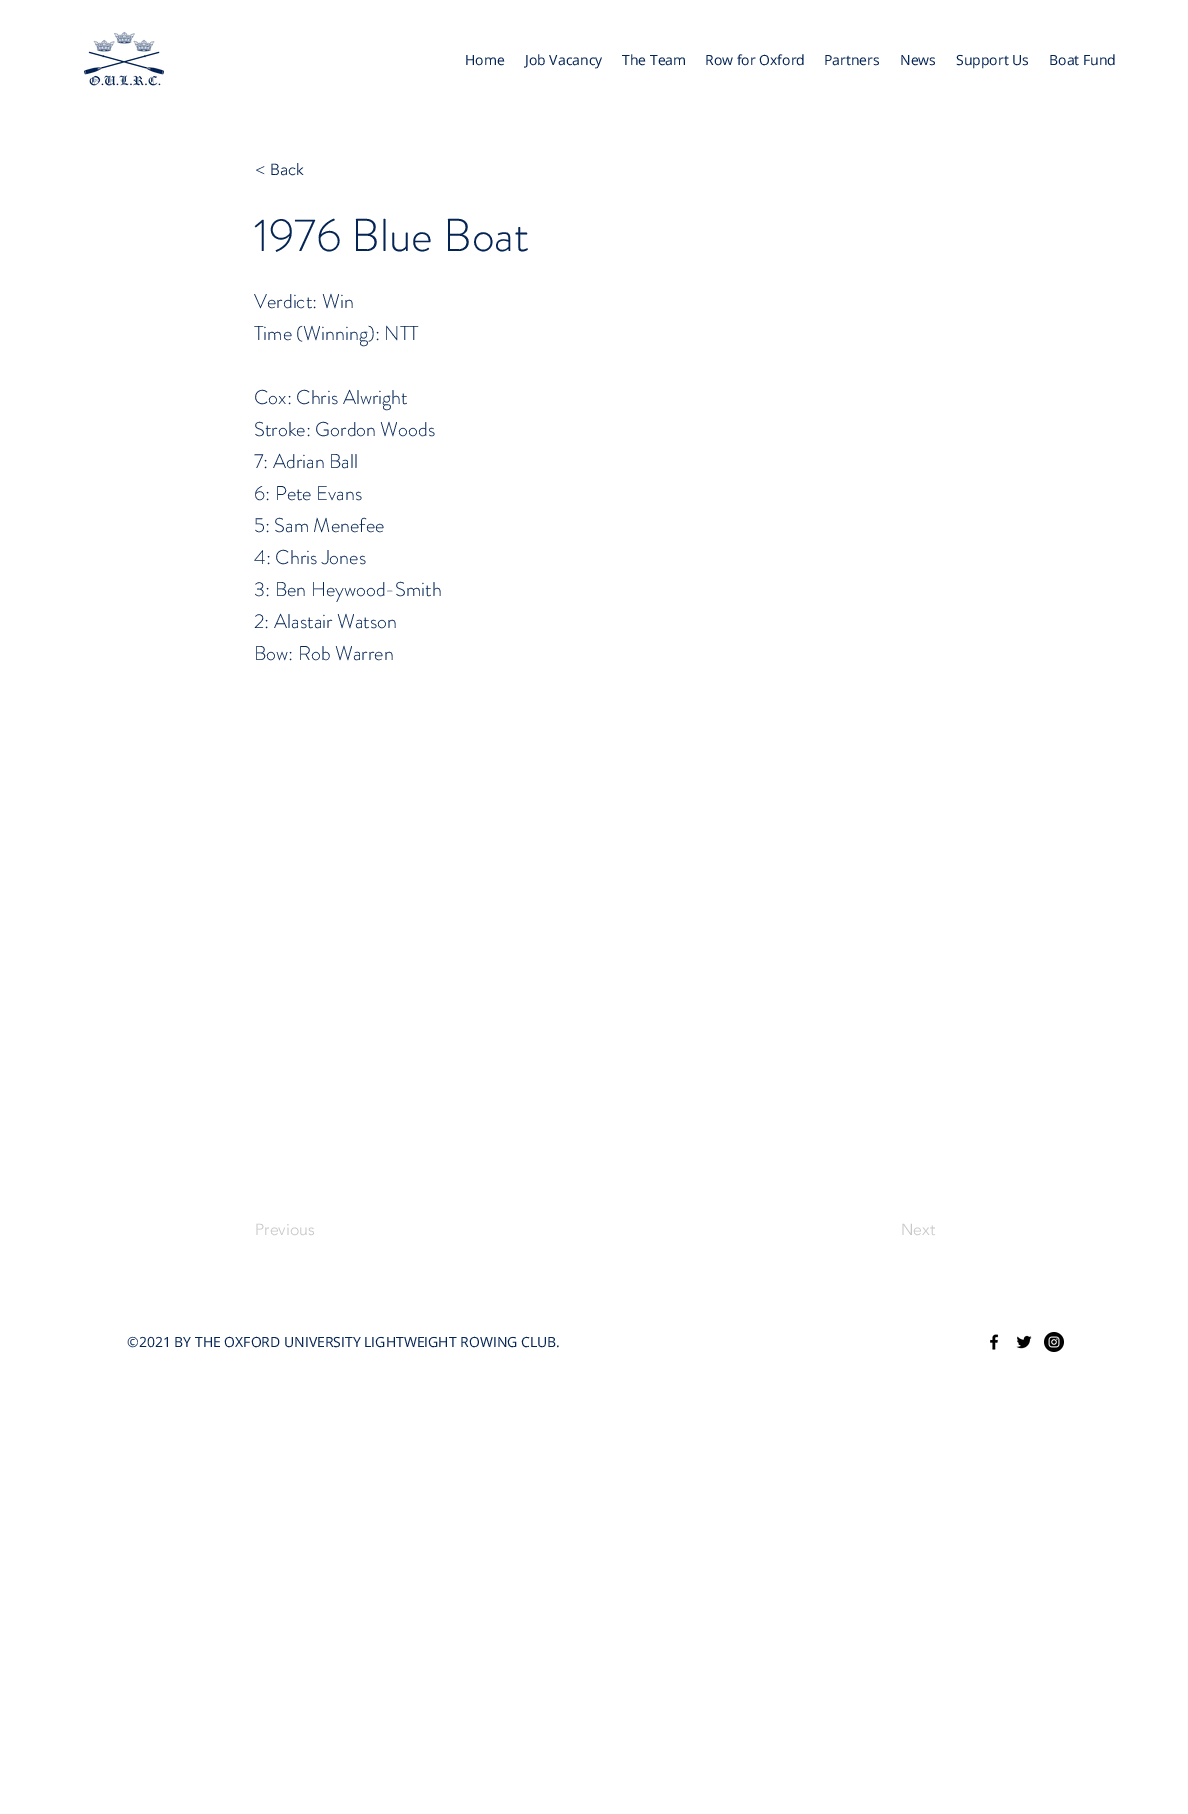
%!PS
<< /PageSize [1188 1814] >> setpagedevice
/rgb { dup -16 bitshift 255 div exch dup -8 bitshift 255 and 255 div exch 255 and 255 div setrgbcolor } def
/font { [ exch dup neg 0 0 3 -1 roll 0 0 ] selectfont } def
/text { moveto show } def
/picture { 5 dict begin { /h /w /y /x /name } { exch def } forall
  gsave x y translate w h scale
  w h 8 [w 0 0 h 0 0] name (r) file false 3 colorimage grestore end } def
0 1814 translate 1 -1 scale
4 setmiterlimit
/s1 { /OpenSans-Regular 14 font 16#042454 rgb } def
/s2 { /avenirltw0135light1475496-Light 16 font 16#042454 rgb } def
/s3 { /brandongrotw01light-Light 46 font 16#042454 rgb } def
/s4 { /brandongrotw01light-Light 20 font 16#042454 rgb } def
/s5 { /avenirltw0135light1475496-Light 16 font 16#C7C7C7 rgb } def
16#FFFFFF rgb
0 0 1188 1814 rectfill
(pic1.raw) 84 31 80 55 picture
s1
(Home) 465 65 text
(Job Vacancy) 525 65 text
(The Team) 622 65 text
(Row for Oxford) 705 65 text
(Partners) 824 65 text
(News) 900 65 text
(Support Us) 956 65 text
(Boat Fund) 1049 65 text
s2
(< Back) 255 175 text
s3
(1976 Blue Boat) 254 251 text
s4
(Verdict: Win) 254 308 text
(Time \(Winning\): NTT) 254 340 text
(Cox: Chris Alwright) 254 404 text
(Stroke: Gordon Woods) 254 436 text
(7: Adrian Ball) 254 468 text
(6: Pete Evans) 254 500 text
(5: Sam Menefee) 254 532 text
(4: Chris Jones) 254 564 text
(3: Ben Heywood-Smith) 254 596 text
(2: Alastair Watson) 254 628 text
(Bow: Rob Warren) 254 660 text
s5
(Previous) 255 1235 text
(Next) 901 1235 text
s1
(©2021 BY THE OXFORD UNIVERSITY LIGHTWEIGHT ROWING CLUB.) 127 1347 text
(pic2.raw) 990 1334 9 16 picture
(pic3.raw) 1016 1335 16 14 picture
(pic4.raw) 1044 1332 20 20 picture
showpage
